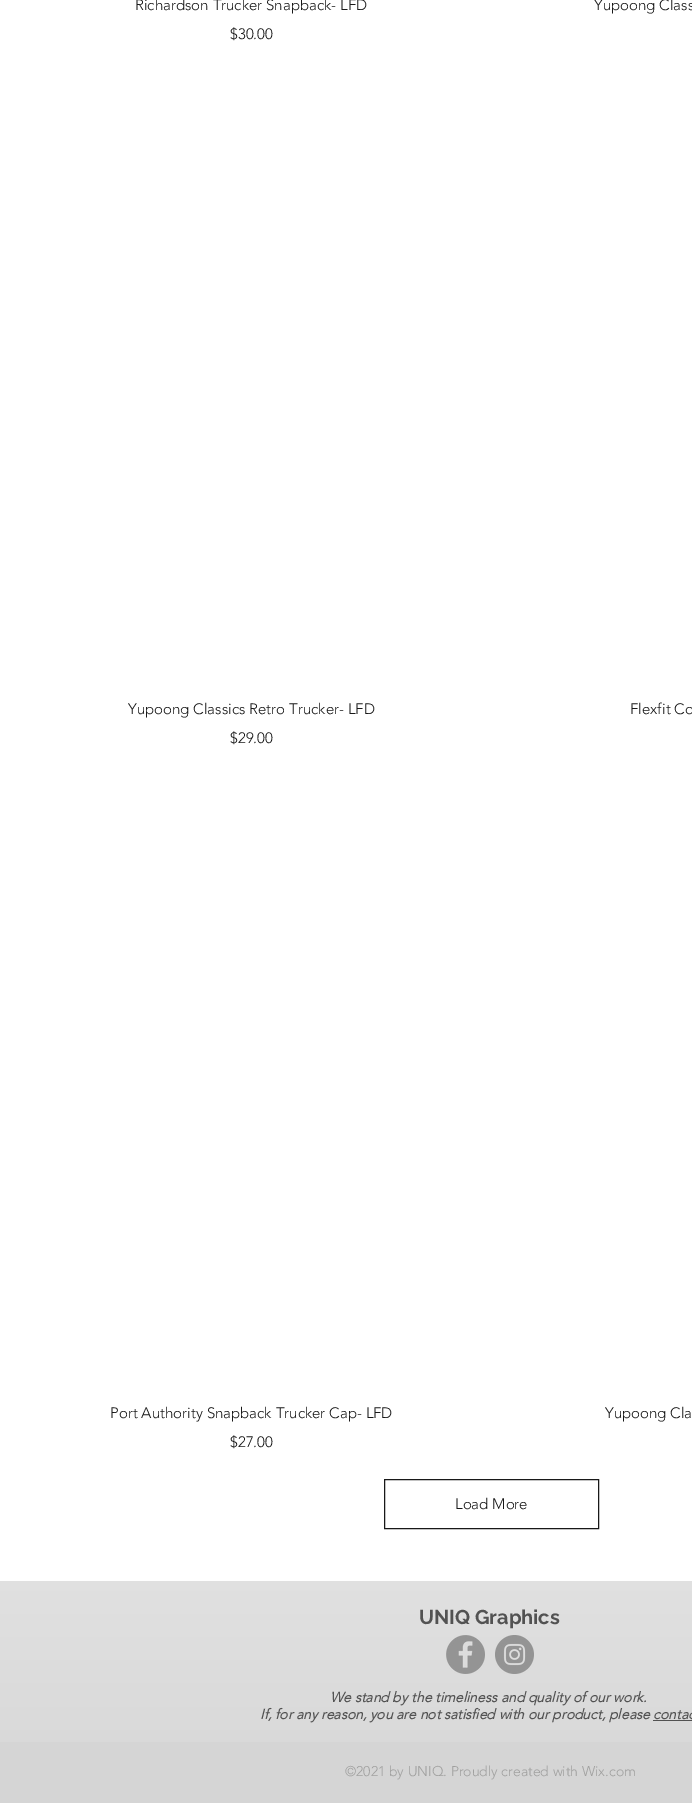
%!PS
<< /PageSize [692 1803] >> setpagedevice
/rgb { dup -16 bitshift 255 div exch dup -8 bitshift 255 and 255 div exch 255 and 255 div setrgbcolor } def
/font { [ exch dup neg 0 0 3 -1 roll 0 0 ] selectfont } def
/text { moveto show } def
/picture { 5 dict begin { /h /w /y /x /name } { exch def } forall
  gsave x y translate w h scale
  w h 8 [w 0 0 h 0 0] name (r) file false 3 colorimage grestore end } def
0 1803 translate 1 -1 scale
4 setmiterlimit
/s1 { /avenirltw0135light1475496-Light 15 font 16#181818 rgb } def
/s2 { /Raleway-Bold 20 font 16#525252 rgb } def
/s3 { /avenirltw0135light1475496-BoldItalic 14 font 16#525252 rgb } def
/s4 { /avenirltw0135light1475496-Light 14 font 16#A0A09F rgb } def
16#FFFFFF rgb
0 0 692 1803 rectfill
s1
(Richardson Trucker Snapback- LFD) 135 10 text
($30.00) 230 39 text
(Yupoong Class) 594 10 text
(Yupoong Classics Retro Trucker- LFD) 128 714 text
($29.00) 230 743 text
(Flexfit Co) 630 714 text
(Port Authority Snapback Trucker Cap- LFD) 110 1418 text
($27.00) 230 1447 text
(Yupoong Cla) 605 1418 text
384.5 1479.5 214 49 rectstroke
(Load More) 455 1509 text
16#D5D5D5 rgb
0 1581 692 222 rectfill
(pic1.raw) 0 1581 692 161 picture
s2
(UNIQ Graphics) 419 1624 text
(pic2.raw) 446 1635 39 39 picture
(pic3.raw) 495 1635 39 39 picture
s3
(We stand by the timeliness and quality of our work.) 330 1702 text
(If, for any reason, you are not satisfied with our product, please contac) 260 1719 text
653 1720 39 1 rectfill
s4
(©2021 by UNIQ. Proudly created with Wix.com) 345 1776 text
showpage
